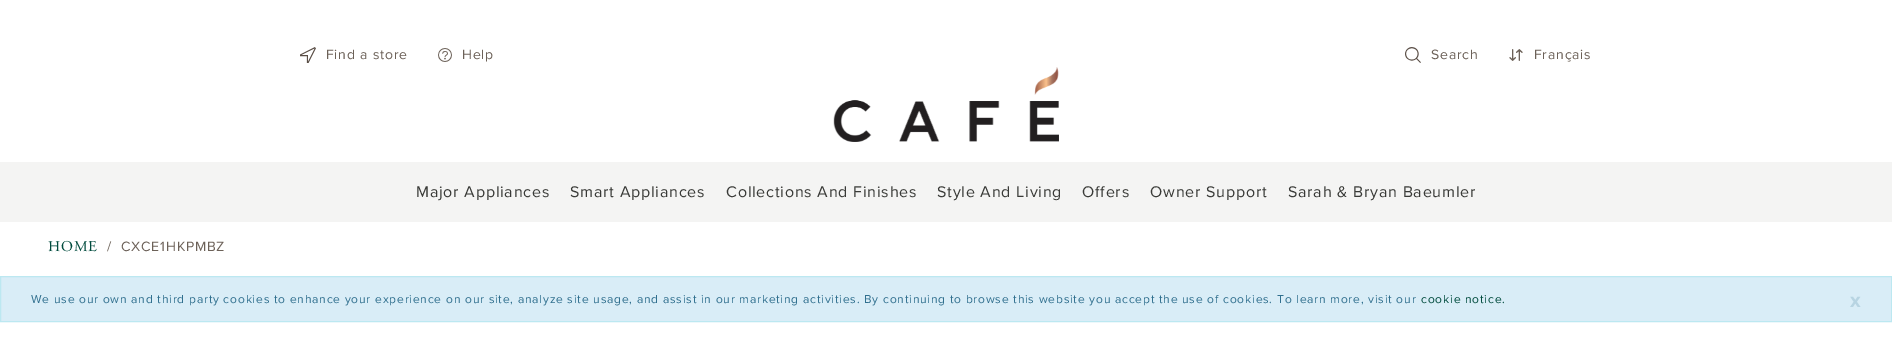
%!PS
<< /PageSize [1892 344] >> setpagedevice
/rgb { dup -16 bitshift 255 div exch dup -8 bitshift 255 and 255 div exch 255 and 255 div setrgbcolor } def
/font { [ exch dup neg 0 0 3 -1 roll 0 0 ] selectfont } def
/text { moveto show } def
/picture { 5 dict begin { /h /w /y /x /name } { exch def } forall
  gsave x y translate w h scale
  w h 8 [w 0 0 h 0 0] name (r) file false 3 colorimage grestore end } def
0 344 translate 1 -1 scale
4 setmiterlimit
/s1 { /ProximaNova-Bold 21 font 16#B7D4E2 rgb } def
16#FFFFFF rgb
0 0 1892 344 rectfill
(pic1.raw) 300 47 16 16 picture
/ProximaNova-Regular 14 font
16#6C6158 rgb
326 59 moveto 0.8 0 (Find a store) ashow
(pic2.raw) 438 48 14 14 picture
462 59 moveto 0.8 0 (Help) ashow
(pic3.raw) 1405 47 16 16 picture
1431 59 moveto 0.8 0 (Search) ashow
(pic4.raw) 1509 49 14 12 picture
1534 59 moveto 0.8 0 (Français) ashow
(pic5.raw) 833 67 226 75 picture
16#F4F4F3 rgb
0 162 1892 60 rectfill
/ProximaNova-Regular 16 font
16#393A37 rgb
416 197 moveto 0.8 0 (Major Appliances) ashow
570 197 moveto 0.8 0 (Smart Appliances) ashow
726 197 moveto 0.8 0 (Collections And Finishes) ashow
937 197 moveto 0.8 0 (Style And Living) ashow
1082 197 moveto 0.8 0 (Offers) ashow
1150 197 moveto 0.8 0 (Owner Support) ashow
1288 197 moveto 0.8 0 (Sarah & Bryan Baeumler) ashow
/AdobeGaramond-Regular 15 font
16#004B3D rgb
48 251 moveto 0.8 0 (HOME) ashow
/ProximaNova-Regular 14 font
16#6C6158 rgb
107 251 moveto 0.8 0 (/) ashow
121 251 moveto 0.8 0 (CXCE1HKPMBZ) ashow
16#D9EDF7 rgb
0.5 276.5 moveto 1891.5 276.5 lineto 1891.5 321.5 lineto 0.5 321.5 lineto closepath gsave fill grestore
16#BCE8F1 rgb
stroke
/ProximaNova-Regular 12 font
16#31708F rgb
31 303 moveto 0.8 0 (We use our own and third party cookies to enhance your experience on our site, analyze site usage, and assist in our marketing activities. By continuing to browse this website you accept the use of cookies. To learn more, visit our) ashow
16#004B3D rgb
1421 303 moveto 0.8 0 (cookie notice.) ashow
s1
(x) 1850 307 text
showpage
